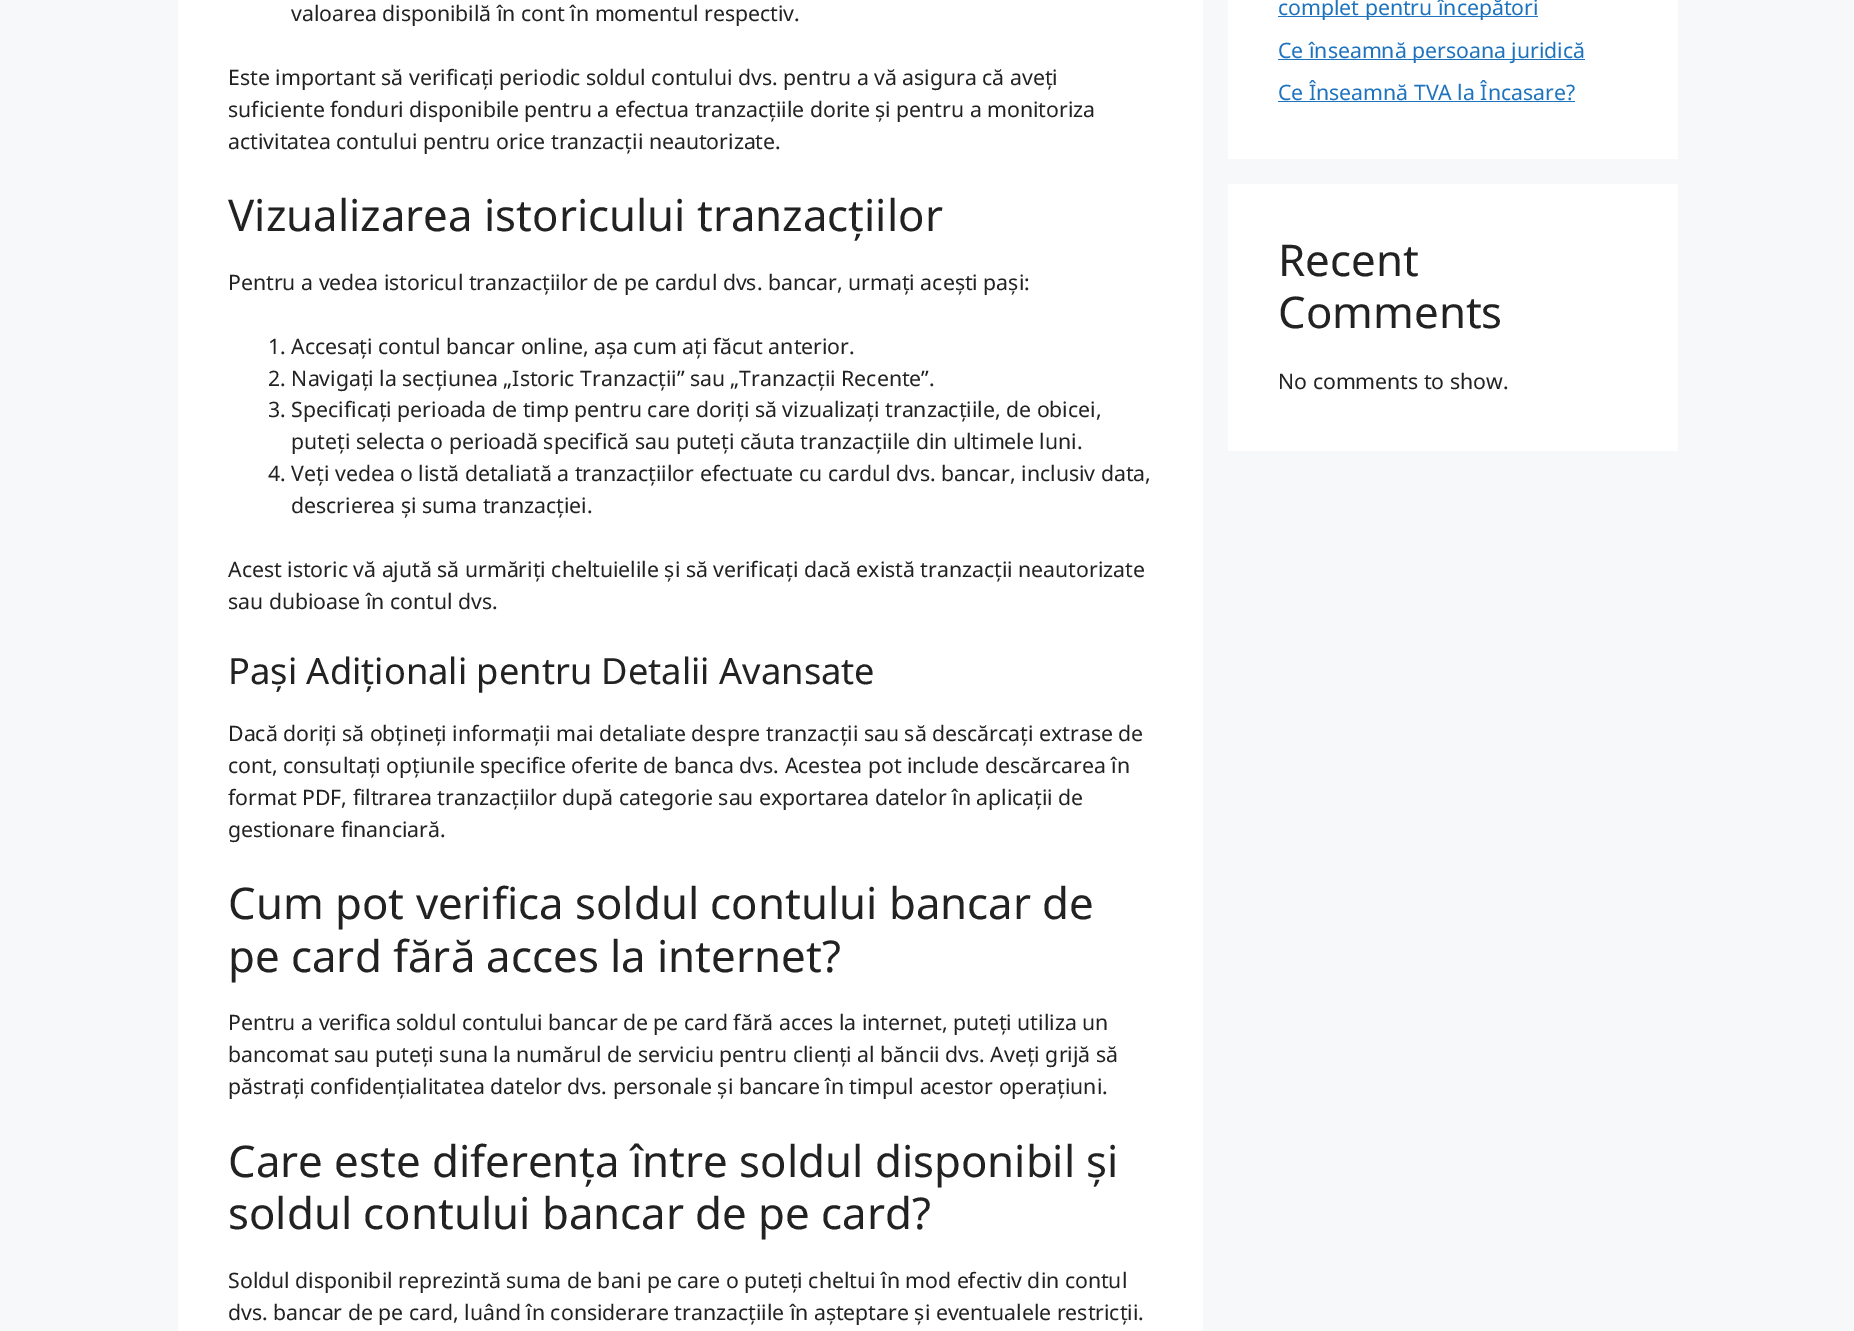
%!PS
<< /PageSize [1854 1331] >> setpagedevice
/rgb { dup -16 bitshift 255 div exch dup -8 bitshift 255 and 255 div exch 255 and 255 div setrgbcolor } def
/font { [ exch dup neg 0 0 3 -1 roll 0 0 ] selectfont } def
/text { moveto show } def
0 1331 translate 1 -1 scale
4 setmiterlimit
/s1 { /NotoSans-Regular 21.25 font 16#222222 rgb } def
/s2 { /NotoSans-Regular 43.75 font 16#222222 rgb } def
/s3 { /NotoSans-Regular 36.25 font 16#222222 rgb } def
/s4 { /NotoSans-Regular 21.25 font 16#1E73BE rgb } def
16#F7F8F9 rgb
0 0 1854 1331 rectfill
16#FFFFFF rgb
178 0 1025 1331 rectfill
s1
(valoarea disponibilă în cont în momentul respectiv.) 291 21 text
(Este important să verificați periodic soldul contului dvs. pentru a vă asigura că aveți) 228 85 text
(suficiente fonduri disponibile pentru a efectua tranzacțiile dorite și pentru a monitoriza) 228 117 text
(activitatea contului pentru orice tranzacții neautorizate.) 228 149 text
s2
(Vizualizarea istoricului tranzacțiilor) 228 231 text
s1
(Pentru a vedea istoricul tranzacțiilor de pe cardul dvs. bancar, urmați acești pași:) 228 290 text
(1. Accesați contul bancar online, așa cum ați făcut anterior.) 268 354 text
(2. Navigați la secțiunea „Istoric Tranzacții” sau „Tranzacții Recente”.) 268 386 text
(3. Specificați perioada de timp pentru care doriți să vizualizați tranzacțiile, de obicei,) 268 417 text
(puteți selecta o perioadă specifică sau puteți căuta tranzacțiile din ultimele luni.) 291 449 text
(4. Veți vedea o listă detaliată a tranzacțiilor efectuate cu cardul dvs. bancar, inclusiv data,) 268 481 text
(descrierea și suma tranzacției.) 291 513 text
(Acest istoric vă ajută să urmăriți cheltuielile și să verificați dacă există tranzacții neautorizate) 228 577 text
(sau dubioase în contul dvs.) 228 609 text
s3
(Pași Adiționali pentru Detalii Avansate) 228 684 text
s1
(Dacă doriți să obțineți informații mai detaliate despre tranzacții sau să descărcați extrase de) 228 741 text
(cont, consultați opțiunile specifice oferite de banca dvs. Acestea pot include descărcarea în) 228 773 text
(format PDF, filtrarea tranzacțiilor după categorie sau exportarea datelor în aplicații de) 228 805 text
(gestionare financiară.) 228 837 text
s2
(Cum pot verifica soldul contului bancar de) 228 919 text
(pe card fără acces la internet?) 228 972 text
s1
(Pentru a verifica soldul contului bancar de pe card fără acces la internet, puteți utiliza un) 228 1030 text
(bancomat sau puteți suna la numărul de serviciu pentru clienți al băncii dvs. Aveți grijă să) 228 1062 text
(păstrați confidențialitatea datelor dvs. personale și bancare în timpul acestor operațiuni.) 228 1094 text
s2
(Care este diferența între soldul disponibil și) 228 1177 text
(soldul contului bancar de pe card?) 228 1229 text
s1
(Soldul disponibil reprezintă suma de bani pe care o puteți cheltui în mod efectiv din contul) 228 1288 text
(dvs. bancar de pe card, luând în considerare tranzacțiile în așteptare și eventualele restricții.) 228 1320 text
16#FFFFFF rgb
1228 0 450 159 rectfill
16#1E73BE rgb
1278 16 260 1 rectfill
(complet pentru începători) 1278 15 text
1278 59 307 1 rectfill
(Ce înseamnă persoana juridică) 1278 58 text
(Ce Înseamnă TVA la Încasare?) 1278 100 text
1278 101 297 1 rectfill
16#FFFFFF rgb
1228 184 450 267 rectfill
s2
(Recent) 1278 276 text
(Comments) 1278 328 text
s1
(No comments to show.) 1278 389 text
showpage
